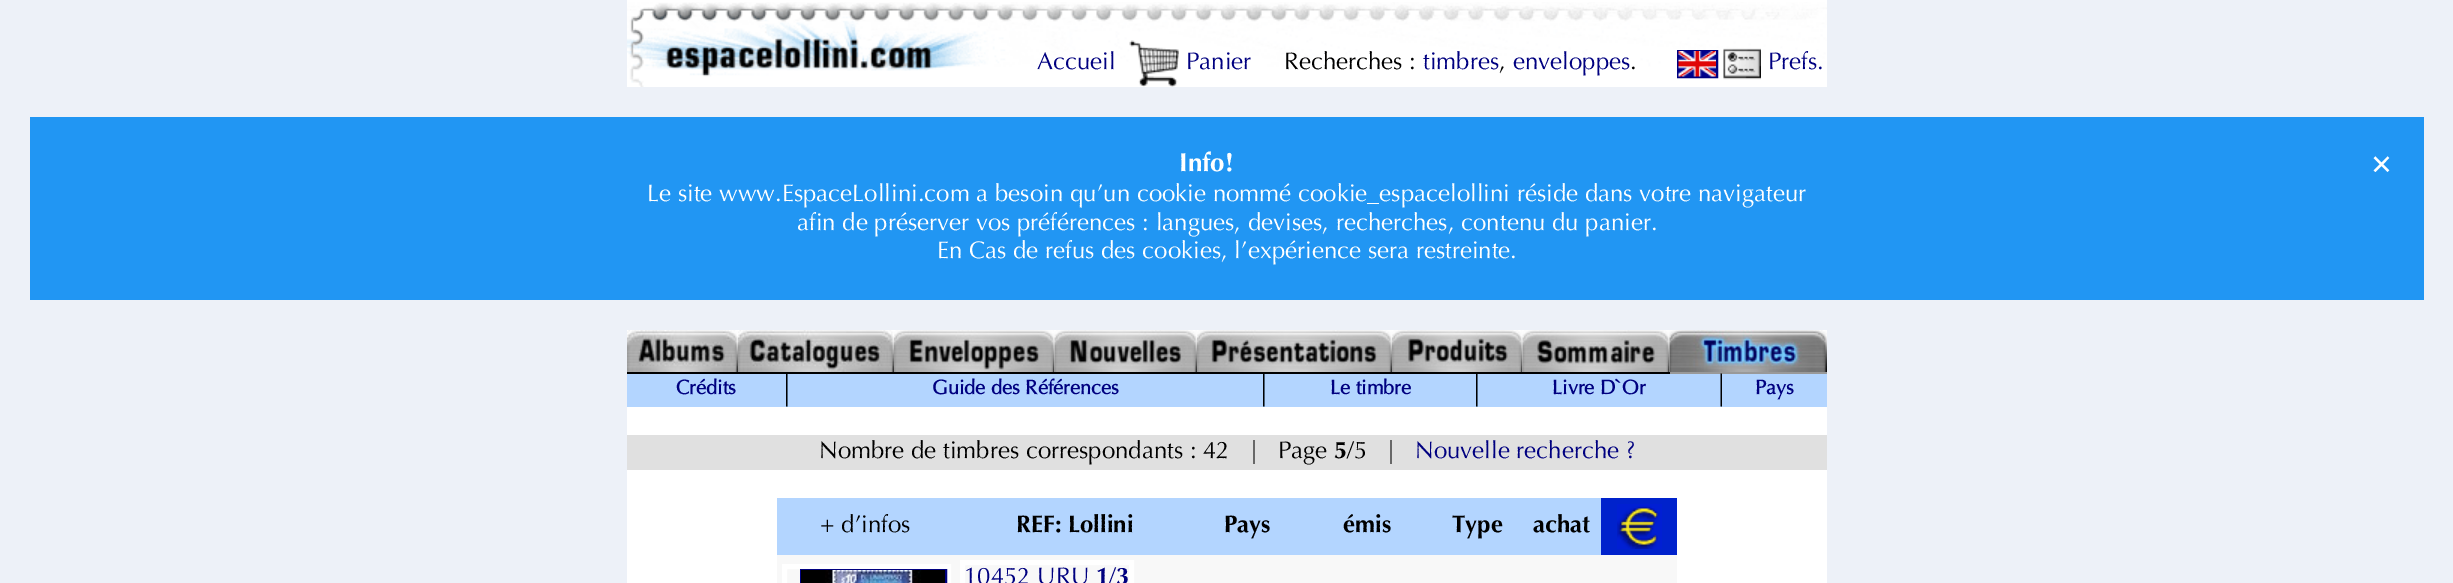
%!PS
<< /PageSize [2453 583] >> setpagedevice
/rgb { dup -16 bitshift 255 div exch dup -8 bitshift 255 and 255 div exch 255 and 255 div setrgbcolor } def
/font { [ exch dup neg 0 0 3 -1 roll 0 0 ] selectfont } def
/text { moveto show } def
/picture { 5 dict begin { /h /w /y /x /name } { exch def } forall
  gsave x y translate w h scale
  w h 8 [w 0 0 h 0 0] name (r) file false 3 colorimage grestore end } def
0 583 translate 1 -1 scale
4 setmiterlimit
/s1 { /Optima-Regular 24 font 16#000080 rgb } def
/s2 { /Optima-Regular 24 font 16#000000 rgb } def
/s3 { /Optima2-Bold 26 font 16#FFFFFF rgb } def
/s4 { /Optima-Bold 33 font 16#FFFFFF rgb } def
/s5 { /Optima-Regular 24 font 16#FFFFFF rgb } def
/s6 { /Optima-Bold 20 font 16#000080 rgb } def
/s7 { /Optima2-Bold 24 font 16#000000 rgb } def
/s8 { /Optima2-Bold 24 font 16#000080 rgb } def
16#EDF1F8 rgb
0 0 2453 583 rectfill
16#FFFFFF rgb
627 0 1200 2 rectfill
(pic1.raw) 627 2 1200 85 picture
s1
(Accueil) 1037 69 text
(pic2.raw) 1129 40 50 47 picture
s2
(Recherches :) 1284 69 text
s1
(timbres) 1423 69 text
(enveloppes) 1513 69 text
2 setlinewidth
1678 51 39 26 rectstroke
(pic3.raw) 1723 48 38 32 picture
(Prefs.) 1768 69 text
(Panier) 1186 69 text
s2
(,) 1499 69 text
(.) 1630 69 text
(pic4.raw) 1678 51 38 26 picture
16#2196F3 rgb
30 117 2394 183 rectfill
s3
(Info!) 1179 171 text
s4
(×) 2371 173 text
s5
(Le site www.EspaceLollini.com a besoin qu’un cookie nommé cookie_espacelollini réside dans votre navigateur) 647 201 text
(afin de préserver vos préférences : langues, devises, recherches, contenu du panier.) 797 230 text
(En Cas de refus des cookies, l’expérience sera restreinte.) 937 258 text
(pic5.raw) 627 330 111 42 picture
(pic6.raw) 738 330 156 42 picture
(pic7.raw) 894 330 161 42 picture
(pic8.raw) 1054 330 143 42 picture
(pic9.raw) 1197 330 195 42 picture
(pic10.raw) 1392 330 131 42 picture
(pic11.raw) 1522 330 148 42 picture
(pic12.raw) 1669 330 158 42 picture
16#000000 rgb
627 372 1043 2 rectfill
16#999999 rgb
1670 372 157 2 rectfill
16#B3D5FF rgb
627 374 159 33 rectfill
s6
(Crédits) 676 394 text
16#93C0EF rgb
786 374 2 33 rectfill
(pic13.raw) 786 374 2 33 picture
16#B3D5FF rgb
788 374 475 33 rectfill
s6
(Guide des Références) 932 394 text
16#93C0EF rgb
1263 374 2 33 rectfill
(pic13.raw) 1263 374 2 33 picture
16#B3D5FF rgb
1265 374 211 33 rectfill
s6
(Le timbre) 1330 394 text
16#93C0EF rgb
1476 374 2 33 rectfill
(pic13.raw) 1476 374 2 33 picture
16#B3D5FF rgb
1478 374 243 33 rectfill
s6
(Livre D`Or) 1552 394 text
16#93C0EF rgb
1721 406 1 1 rectfill
(pic14.raw) 1720 373 2 34 picture
16#B3D5FF rgb
1722 374 105 33 rectfill
s6
(Pays) 1755 394 text
16#FFFFFF rgb
627 407 1200 176 rectfill
16#E0E0E0 rgb
627 435 1200 35 rectfill
s2
(Nombre de timbres correspondants : 42   |   Page) 819 458 text
s7
(5) 1334 458 text
s2
(/5   |) 1347 458 text
s1
(Nouvelle recherche ?) 1415 458 text
16#B3D5FF rgb
777 498 824 57 rectfill
s2
(+ d’infos) 820 532 text
s7
(REF: Lollini) 1016 532 text
(Pays) 1224 532 text
(émis) 1343 532 text
(Type) 1452 532 text
(achat) 1533 532 text
16#0022CC rgb
1601 498 76 57 rectfill
(pic15.raw) 1617 504 45 45 picture
16#F8F8F8 rgb
777 555 900 28 rectfill
16#FFFFFF rgb
5 setlinewidth
784.5 566.5 164 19 rectstroke
16#000080 rgb
2 setlinewidth
801 570 145 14 rectstroke
(pic16.raw) 801 570 144 13 picture
16#FFFFFF rgb
5 setlinewidth
962.5 562.5 169 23 rectstroke
s1
(10452 URU) 964 584 text
s8
(1 3) 1096 584 text
s1
(/) 1109 584 text
showpage
